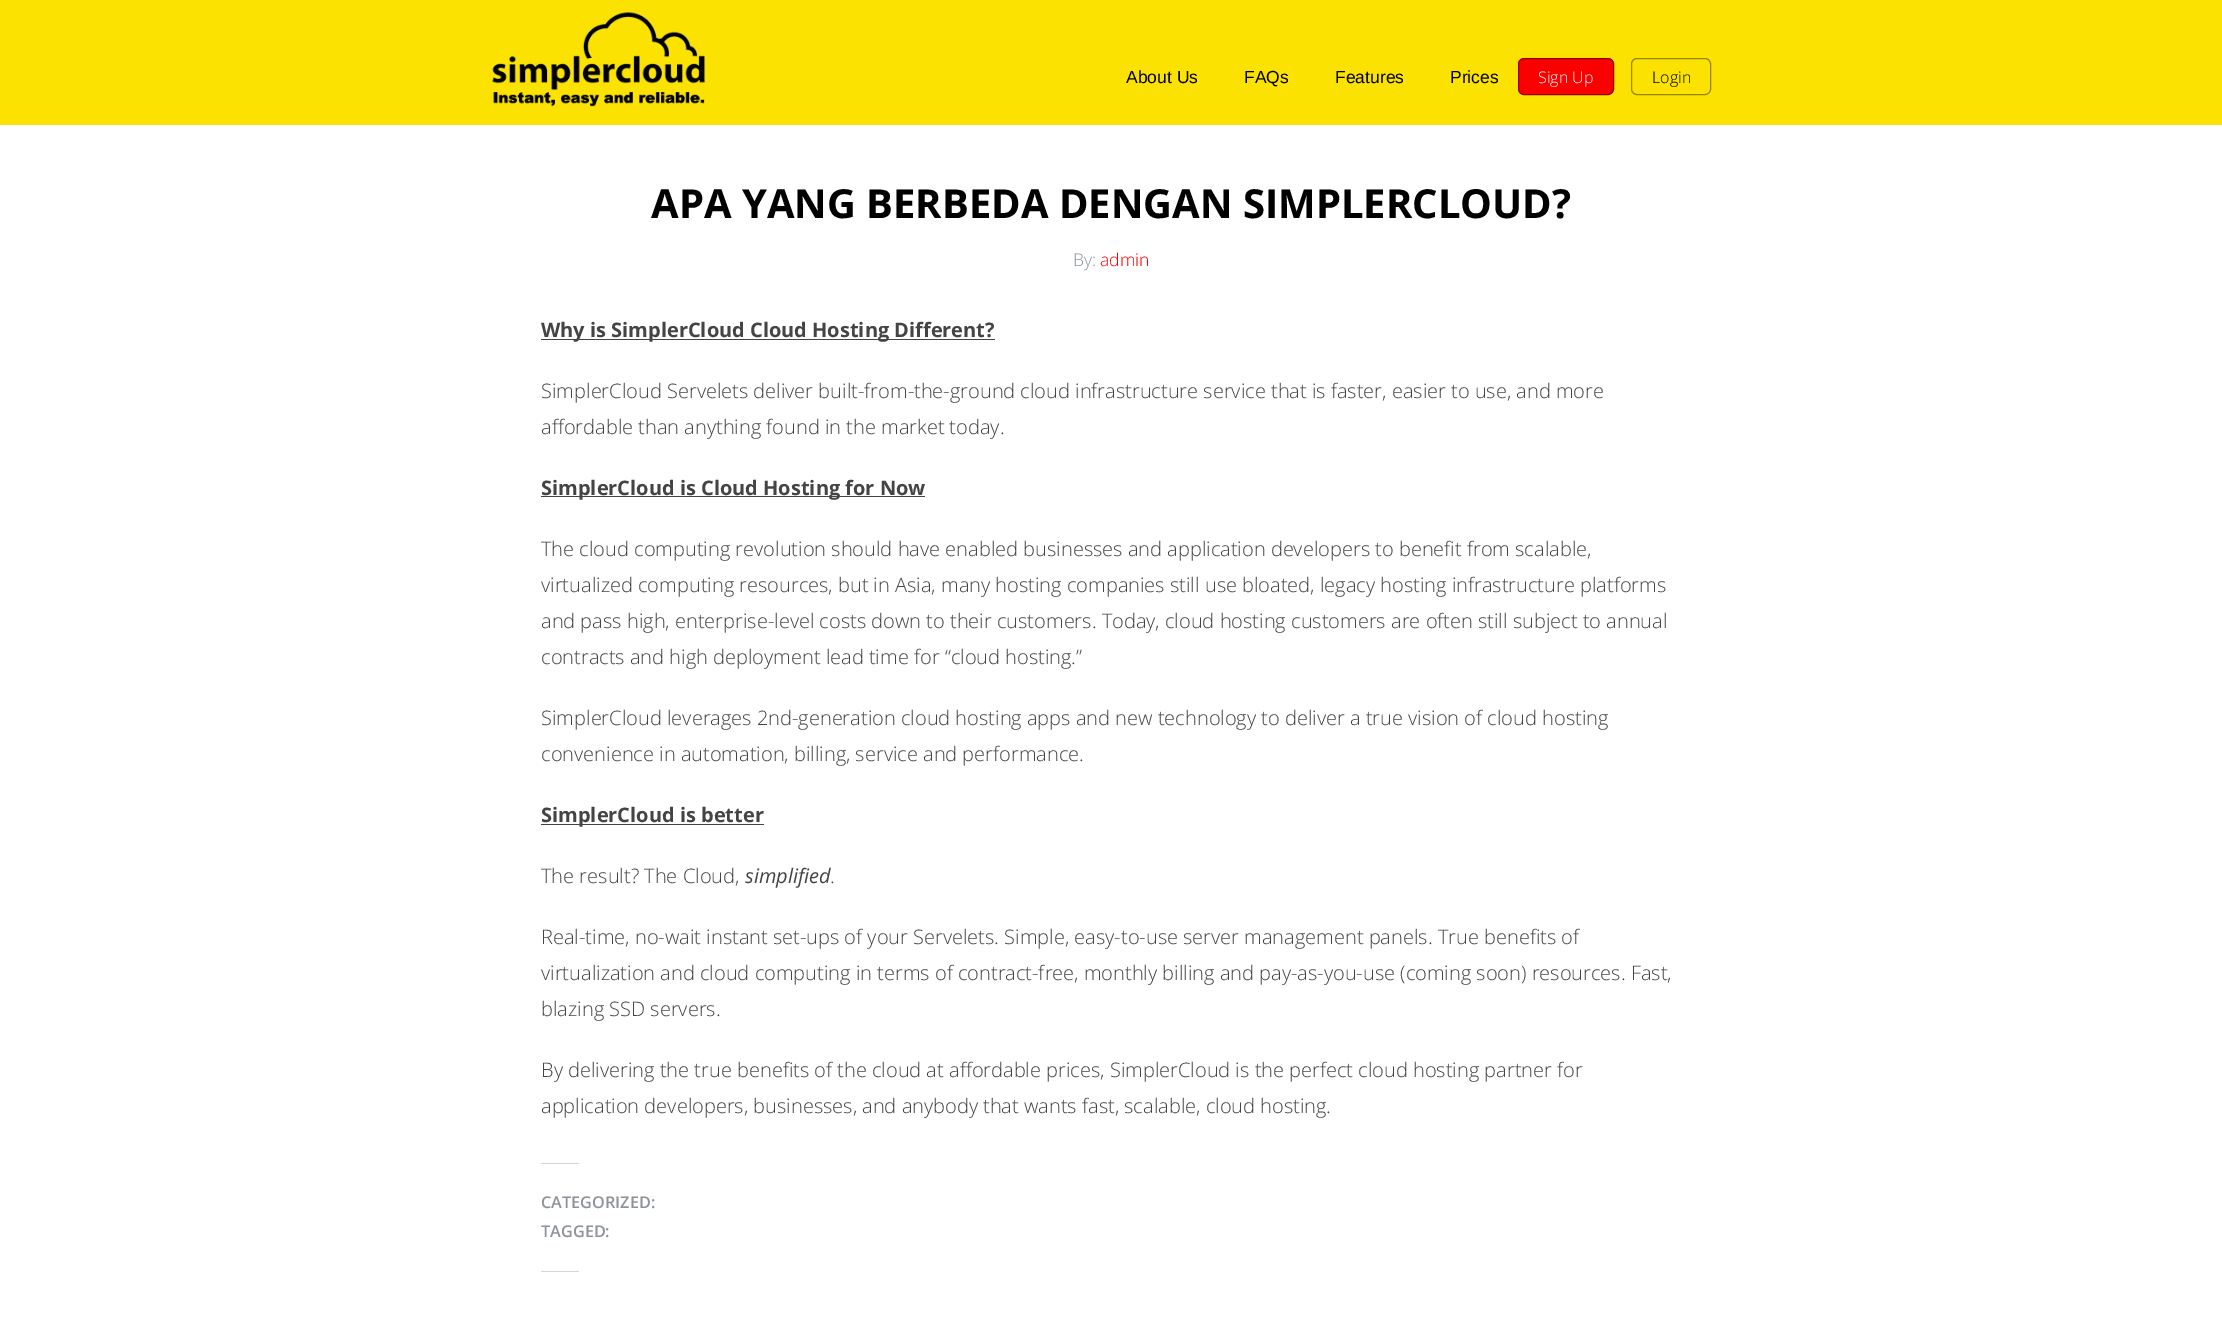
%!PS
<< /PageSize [2222 1335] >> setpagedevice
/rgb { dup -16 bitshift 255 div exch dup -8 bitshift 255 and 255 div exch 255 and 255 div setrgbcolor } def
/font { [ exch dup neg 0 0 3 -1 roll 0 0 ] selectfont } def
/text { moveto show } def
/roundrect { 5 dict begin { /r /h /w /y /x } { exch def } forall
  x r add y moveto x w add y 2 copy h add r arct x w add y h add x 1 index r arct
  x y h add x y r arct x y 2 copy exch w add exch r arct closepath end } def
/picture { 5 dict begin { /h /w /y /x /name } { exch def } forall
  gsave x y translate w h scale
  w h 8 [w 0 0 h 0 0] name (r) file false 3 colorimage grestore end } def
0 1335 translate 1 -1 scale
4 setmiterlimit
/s1 { /LiberationSans-Regular 17.5 font 16#000000 rgb } def
/s2 { /OpenSans-Light 16 font 16#FFFFFF rgb } def
/s3 { /OpenSans-Light 16 font 16#000000 rgb } def
/s4 { /OpenSans-Bold 40 font 16#000000 rgb } def
/s5 { /OpenSans-Light 17.5 font 16#8D9398 rgb } def
/s6 { /OpenSans-Light 17.5 font 16#FA0000 rgb } def
/s7 { /OpenSans-Bold 20 font 16#444444 rgb } def
/s8 { /OpenSans-Light 20 font 16#444444 rgb } def
/s9 { /OpenSans-Italic 20 font 16#444444 rgb } def
/s10 { /OpenSans-SemiBold 16.25 font 16#8D9398 rgb } def
16#FFFFFF rgb
0 0 2222 1335 rectfill
16#FCE200 rgb
0 0 2222 125 rectfill
(pic1.raw) 492 12 213 95 picture
s1
(About Us) 1126 83 text
(FAQs) 1244 83 text
(Features) 1335 83 text
(Prices) 1450 83 text
16#FA0000 rgb
1518.5 58.5 95 36 5.5 roundrect gsave fill grestore
16#970000 rgb
stroke
s2
(Sign Up) 1538 83 text
16#978700 rgb
1631.5 58.5 79 36 5.5 roundrect stroke
s3
(Login) 1652 83 text
s4
(APA YANG BERBEDA DENGAN SIMPLERCLOUD?) 651 218 text
s5
(By:) 1073 266 text
s6
(admin) 1100 266 text
16#444444 rgb
541 339 454 1 rectfill
s7
(Why is SimplerCloud Cloud Hosting Different?) 541 337 text
s8
(SimplerCloud Servelets deliver built-from-the-ground cloud infrastructure service that is faster, easier to use, and more) 541 398 text
(affordable than anything found in the market today.) 541 434 text
541 496 384 1 rectfill
s7
(SimplerCloud is Cloud Hosting for Now) 541 495 text
s8
(The cloud computing revolution should have enabled businesses and application developers to benefit from scalable,) 541 556 text
(virtualized computing resources, but in Asia, many hosting companies still use bloated, legacy hosting infrastructure platforms) 541 592 text
(and pass high, enterprise-level costs down to their customers. Today, cloud hosting customers are often still subject to annual) 541 628 text
(contracts and high deployment lead time for “cloud hosting.”) 541 664 text
(SimplerCloud leverages 2nd-generation cloud hosting apps and new technology to deliver a true vision of cloud hosting) 541 725 text
(convenience in automation, billing, service and performance.) 541 761 text
541 824 223 1 rectfill
s7
(SimplerCloud is better) 541 822 text
s8
(The result? The Cloud,) 541 883 text
s9
(simplified) 745 883 text
s8
(.) 830 883 text
(Real-time, no-wait instant set-ups of your Servelets. Simple, easy-to-use server management panels. True benefits of) 541 944 text
(virtualization and cloud computing in terms of contract-free, monthly billing and pay-as-you-use \(coming soon\) resources. Fast,) 541 980 text
(blazing SSD servers.) 541 1016 text
(By delivering the true benefits of the cloud at affordable prices, SimplerCloud is the perfect cloud hosting partner for) 541 1077 text
(application developers, businesses, and anybody that wants fast, scalable, cloud hosting.) 541 1113 text
16#CED5DB rgb
541 1163 38 1 rectfill
s10
(CATEGORIZED:) 541 1208 text
(TAGGED:) 541 1237 text
16#CED5DB rgb
541 1271 38 1 rectfill
showpage
